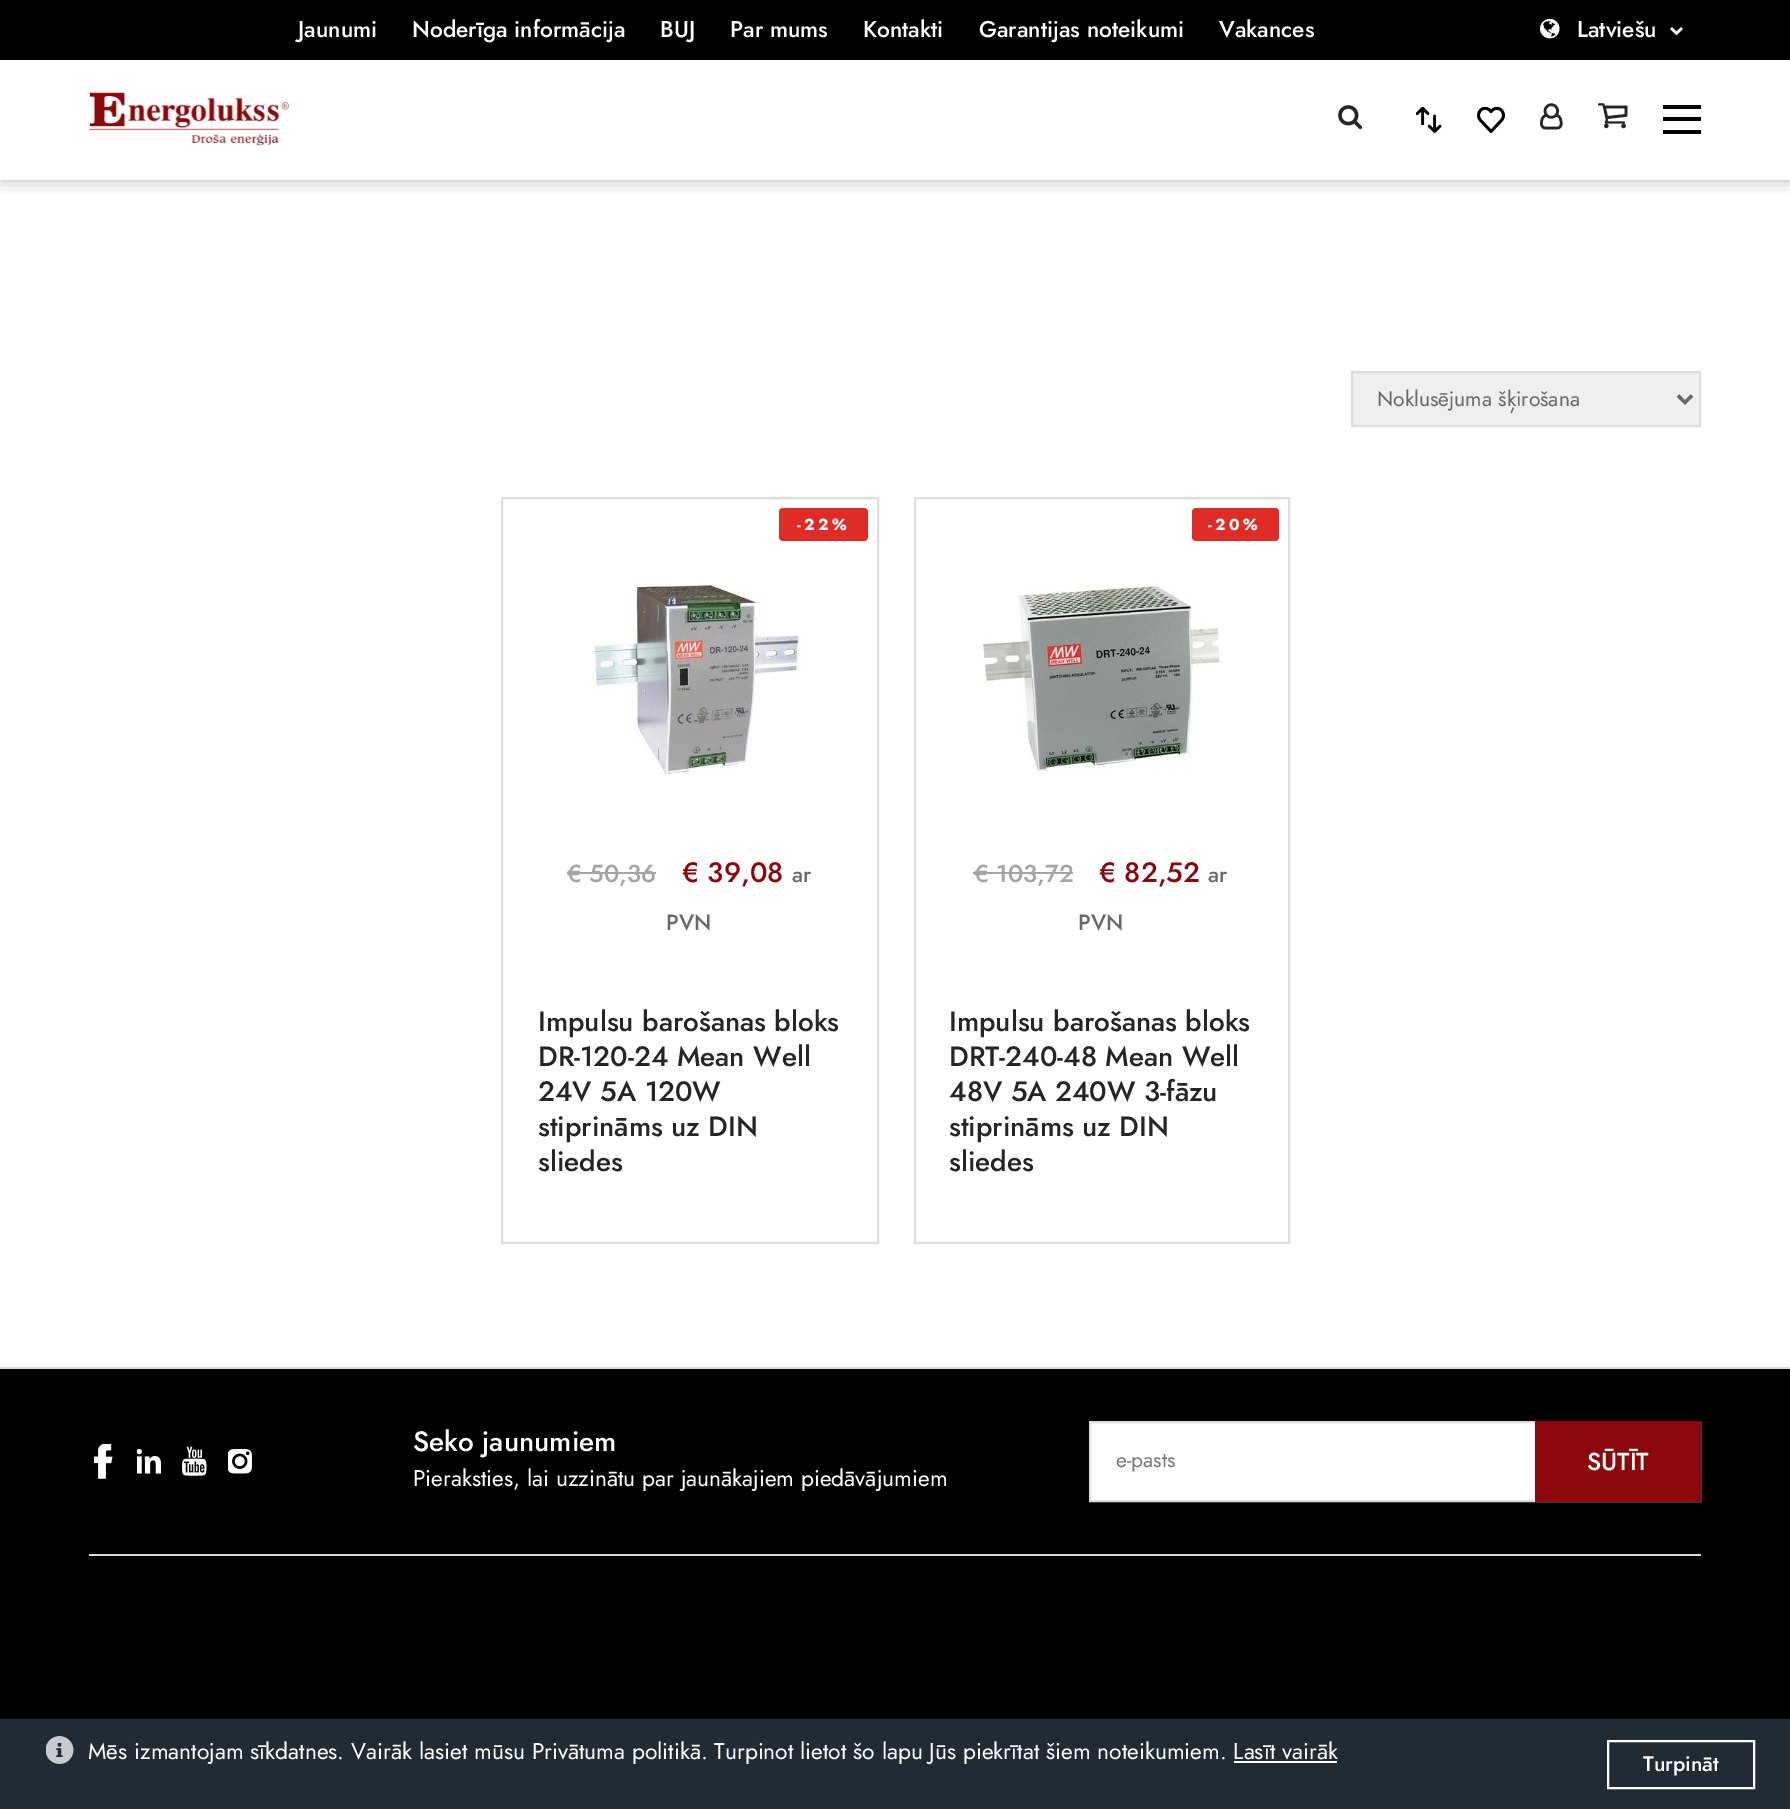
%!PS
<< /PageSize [1790 1809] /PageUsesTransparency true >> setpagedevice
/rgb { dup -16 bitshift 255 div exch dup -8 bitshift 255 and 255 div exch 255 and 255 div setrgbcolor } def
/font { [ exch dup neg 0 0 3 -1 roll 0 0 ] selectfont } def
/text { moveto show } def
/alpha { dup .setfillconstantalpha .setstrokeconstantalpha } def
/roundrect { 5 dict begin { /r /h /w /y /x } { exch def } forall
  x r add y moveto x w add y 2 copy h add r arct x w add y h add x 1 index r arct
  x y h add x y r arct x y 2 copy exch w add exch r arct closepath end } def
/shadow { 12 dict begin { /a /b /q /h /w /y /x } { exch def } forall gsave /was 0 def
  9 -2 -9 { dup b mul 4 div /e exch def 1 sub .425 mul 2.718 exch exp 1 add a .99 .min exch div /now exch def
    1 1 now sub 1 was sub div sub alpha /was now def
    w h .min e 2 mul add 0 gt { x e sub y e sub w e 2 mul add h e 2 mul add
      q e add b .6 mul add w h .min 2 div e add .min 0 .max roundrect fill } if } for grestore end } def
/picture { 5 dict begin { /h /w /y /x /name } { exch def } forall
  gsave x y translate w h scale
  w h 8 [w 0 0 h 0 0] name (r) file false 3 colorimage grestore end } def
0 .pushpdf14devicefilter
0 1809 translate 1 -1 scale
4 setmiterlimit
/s1 { /Jost-Medium 22.75 font 16#FFFFFF rgb } def
/s2 { /Jost-Regular 21 font 16#68686C rgb } def
/s3 { /Jost-Medium 24.5 font 16#A4A4A7 rgb } def
/s4 { /Jost-Medium 28 font 16#8C080C rgb } def
/s5 { /Jost-Medium 22 font 16#68686C rgb } def
/s6 { /Jost-Medium 28 font 16#242626 rgb } def
/s7 { /Jost-Medium 28 font 16#FFFFFF rgb } def
/s8 { /Jost-Regular 22.75 font 16#FFFFFF rgb } def
/s9 { /Jost-Regular 21 font 16#757575 rgb } def
/s10 { /Jost-Medium 24.5 font 16#FFFFFF rgb } def
/s11 { /Jost-Medium 21 font 16#FFFFFF rgb } def
16#FFFFFF rgb
0 0 1790 1809 rectfill
gsave
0 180 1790 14 rectclip
16#000000 rgb
0 60 1790 120 0 9 0.3 shadow
grestore
16#000000 rgb
0 0 1790 60 rectfill
s1
(Jaunumi) 298 37 text
(Noderīga informācija) 412 37 text
(BUJ) 660 37 text
(Par mums) 730 37 text
(Kontakti) 863 37 text
(Garantijas noteikumi) 979 37 text
(Vakances) 1219 37 text
(pic1.raw) 1540 18 20 21 picture
(Latviešu) 1577 37 text
(pic2.raw) 1670 27 13 9 picture
(pic3.raw) 89 92 200 54 picture
(pic4.raw) 1338 105 25 25 picture
(pic5.raw) 1416 107 26 26 picture
(pic6.raw) 1477 107 28 26 picture
(pic7.raw) 1540 103 23 27 picture
(pic8.raw) 1598 103 30 26 picture
16#000000 rgb
1663 105 38 4 rectfill
1663 117 38 4 rectfill
1663 130 38 4 rectfill
16#EFEFEF rgb
1352 372 moveto 1700 372 lineto 1700 426 lineto 1352 426 lineto closepath gsave fill grestore
16#DDDDDD rgb
2 setlinewidth
stroke
16#68686C rgb
3.5 setlinewidth
1678 395.5 moveto 1685 402.5 lineto 1692 395.5 lineto stroke
s2
(Noklusējuma šķirošana) 1377 406 text
16#DDDDDD rgb
2 setlinewidth
502 498 376 745 rectstroke
16#E02C27 rgb
779 508 89 33 4 roundrect fill
/Jost-Bold 16 font
16#FFFFFF rgb
797 530 moveto 3.5 0 (-22%) ashow
(pic9.raw) 594 584 208 191 picture
s3
(€ 50,36) 567 882 text
567 872 89 2 rectfill
s4
(€ 39,08) 682 882 text
s5
(ar) 792 882 text
(PVN) 666 930 text
s6
(Impulsu barošanas bloks) 538 1031 text
(DR-120-24 Mean Well) 538 1066 text
(24V 5A 120W) 538 1101 text
(stiprināms uz DIN) 538 1136 text
(sliedes) 538 1171 text
16#DDDDDD rgb
915 498 374 745 rectstroke
16#E02C27 rgb
1192 508 87 33 4 roundrect fill
/Jost-Bold 16 font
16#FFFFFF rgb
1208 530 moveto 3.5 0 (-20%) ashow
(pic10.raw) 983 584 241 188 picture
s3
(€ 103,72) 974 882 text
973 872 100 2 rectfill
s4
(€ 82,52) 1099 882 text
s5
(ar) 1208 882 text
(PVN) 1078 930 text
s6
(Impulsu barošanas bloks) 949 1031 text
(DRT-240-48 Mean Well) 949 1066 text
(48V 5A 240W 3-fāzu) 949 1101 text
(stiprināms uz DIN) 949 1136 text
(sliedes) 949 1171 text
16#000000 rgb
0 1369 1790 350 rectfill
16#DDDDDD rgb
0 1367 1790 2 rectfill
(pic11.raw) 93 1444 20 35 picture
(pic12.raw) 137 1449 24 25 picture
(pic13.raw) 182 1446 25 30 picture
(pic14.raw) 228 1449 24 25 picture
s7
(Seko jaunumiem) 413 1451 text
s8
(Pieraksties, lai uzzinātu par jaunākajiem piedāvājumiem) 413 1486 text
1091 1423 444 77 rectfill
16#DDDDDD rgb
1090 1422 610 79 rectstroke
s9
(e-pasts) 1116 1467 text
16#8C080C rgb
1535 1421 166 81 rectfill
s10
(SŪTĪT) 1587 1470 text
16#DDDDDD rgb
89 1554 1612 2 rectfill
16#212B36 rgb
0 1719 1790 90 rectfill
(pic15.raw) 46 1736 28 28 picture
s8
(Mēs izmantojam sīkdatnes. Vairāk lasiet mūsu Privātuma politikā. Turpinot lietot šo lapu Jūs piekrītat šiem noteikumiem. Lasīt vairāk) 88 1759 text
1234 1761 103 2 rectfill
1608 1741 146 47 rectstroke
s11
(Turpināt) 1643 1771 text
.poppdf14devicefilter showpage
